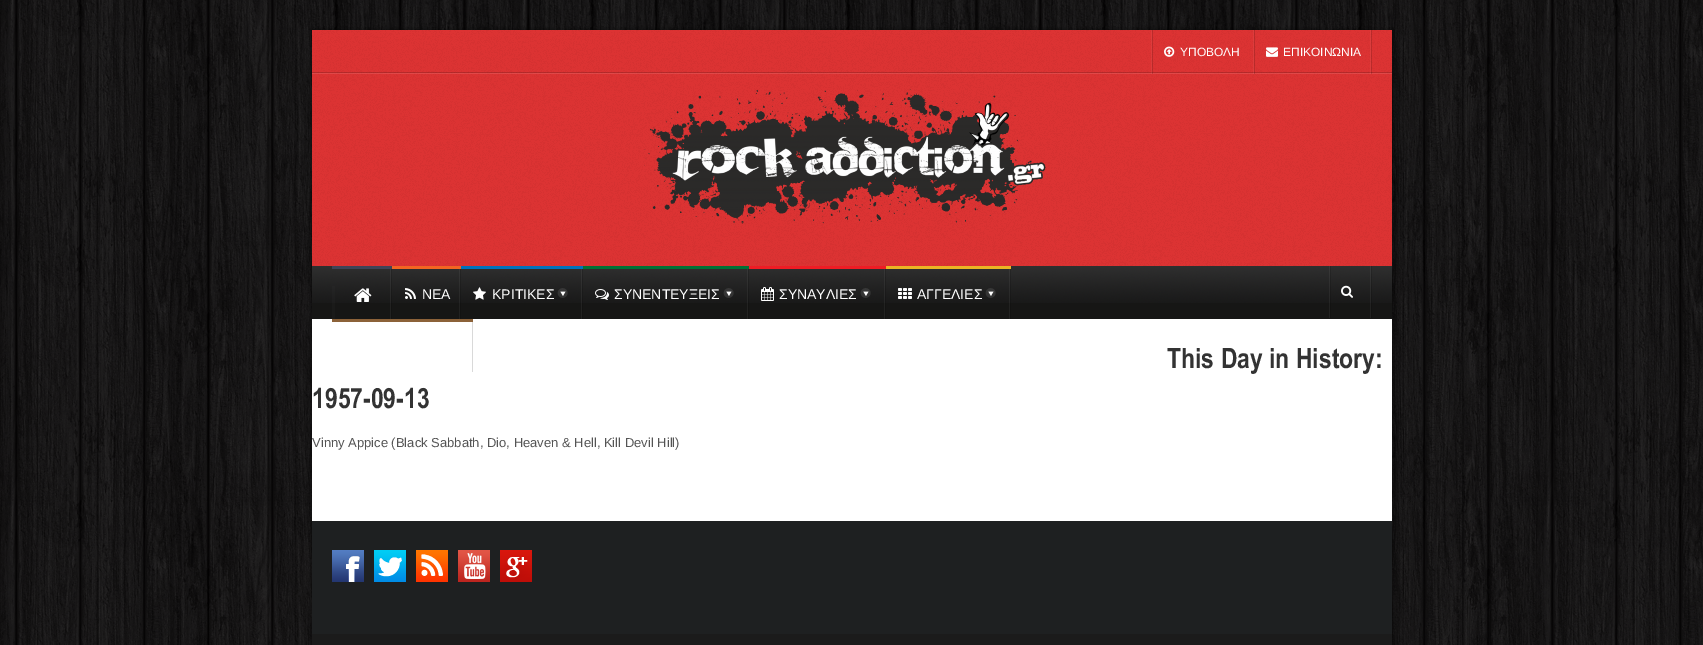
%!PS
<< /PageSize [1703 645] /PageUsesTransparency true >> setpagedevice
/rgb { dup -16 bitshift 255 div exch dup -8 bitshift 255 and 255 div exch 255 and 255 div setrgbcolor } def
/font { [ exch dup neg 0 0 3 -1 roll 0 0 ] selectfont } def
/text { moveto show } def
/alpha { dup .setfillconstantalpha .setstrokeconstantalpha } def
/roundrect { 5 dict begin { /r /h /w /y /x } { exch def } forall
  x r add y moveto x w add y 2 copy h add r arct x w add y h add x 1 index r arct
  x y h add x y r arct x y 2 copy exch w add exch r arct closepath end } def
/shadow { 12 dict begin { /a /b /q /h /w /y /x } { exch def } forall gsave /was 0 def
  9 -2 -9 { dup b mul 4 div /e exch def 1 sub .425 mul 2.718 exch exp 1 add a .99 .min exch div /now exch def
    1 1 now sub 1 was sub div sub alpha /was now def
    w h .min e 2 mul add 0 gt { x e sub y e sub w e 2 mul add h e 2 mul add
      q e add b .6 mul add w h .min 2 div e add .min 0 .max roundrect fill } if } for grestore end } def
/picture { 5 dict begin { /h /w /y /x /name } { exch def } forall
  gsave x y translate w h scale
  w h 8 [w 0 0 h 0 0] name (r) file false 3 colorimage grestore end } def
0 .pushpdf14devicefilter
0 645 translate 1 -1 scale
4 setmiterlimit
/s1 { /LiberationSans-Regular 12 font 16#FFFFFF rgb } def
/s2 { /LiberationSans-Regular 14 font 16#FFFFFF rgb } def
/s3 { /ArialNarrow-Bold 28 font 16#333333 rgb } def
/s4 { /LiberationSans-Regular 13 font 16#545454 rgb } def
16#FFFFFF rgb
0 0 1703 645 rectfill
(pic1.raw) 0 0 1703 645 picture
16#000000 rgb
311 29 1082 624 0 2.5 0.4 shadow
16#FFFFFF rgb
312 319 1080 202 rectfill
16#DD3333 rgb
312 30 1080 236 rectfill
(pic2.raw) 312 30 1080 236 picture
(pic3.raw) 312 72 1080 2 picture
(pic4.raw) 1151 30 2 44 picture
(pic5.raw) 1253 30 2 44 picture
(pic6.raw) 1164 46 11 11 picture
s1
(ΥΠΟΒΟΛΗ) 1180 56 text
(pic7.raw) 1370 30 2 44 picture
(pic8.raw) 1266 47 12 10 picture
(ΕΠΙΚΟΙΝΩΝΙΑ) 1283 56 text
(pic9.raw) 644 89 402 135 picture
16#161615 rgb
312 303 1080 16 rectfill
(pic10.raw) 312 266 1080 37 picture
0.1 alpha
16#3D3D3D rgb
332 286 3 33 rectfill
1 alpha
(pic11.raw) 390 269 2 50 picture
16#3F4457 rgb
332 266 60 3 rectfill
(pic12.raw) 354 288 18 14 picture
(pic13.raw) 459 269 2 50 picture
16#F26522 rgb
392 266 69 3 rectfill
(pic14.raw) 405 288 11 11 picture
s2
(ΝΕΑ) 422 299 text
(pic15.raw) 581 269 2 50 picture
16#0072BC rgb
461 266 122 3 rectfill
(pic16.raw) 557 288 11 10 picture
(pic17.raw) 473 287 13 13 picture
s2
(ΚΡΙΤΙΚΕΣ) 492 299 text
(pic13.raw) 747 269 2 50 picture
16#007236 rgb
583 266 166 3 rectfill
(pic18.raw) 723 288 11 10 picture
(pic19.raw) 595 289 14 11 picture
s2
(ΣΥΝΕΝΤΕΥΞΕΙΣ) 614 299 text
(pic20.raw) 884 269 2 50 picture
16#EE1C24 rgb
749 266 137 3 rectfill
(pic21.raw) 860 288 11 10 picture
(pic22.raw) 761 287 13 14 picture
s2
(ΣΥΝΑΥΛΙΕΣ) 779 299 text
(pic23.raw) 1009 269 2 50 picture
16#EBB424 rgb
886 266 125 3 rectfill
(pic24.raw) 985 288 11 10 picture
(pic25.raw) 898 288 14 11 picture
s2
(ΑΓΓΕΛΙΕΣ) 917 299 text
16#D9D9D9 rgb
472 322 1 50 rectfill
16#8C6239 rgb
332 319 141 3 rectfill
(pic26.raw) 1329 266 2 52 picture
(pic27.raw) 1370 266 2 52 picture
(pic28.raw) 1341 285 12 13 picture
s3
(This Day in History:) 1167 368 text
(1957-09-13) 312 408 text
s4
(Vinny Appice \(Black Sabbath, Dio, Heaven & Hell, Kill Devil Hill\)) 312 447 text
16#1E2021 rgb
312 521 1080 113 rectfill
(pic29.raw) 332 550 32 32 picture
(pic30.raw) 374 550 32 32 picture
(pic31.raw) 416 550 32 32 picture
(pic32.raw) 458 550 32 32 picture
(pic33.raw) 500 550 32 32 picture
16#1B1B1B rgb
312 634 1080 11 rectfill
.poppdf14devicefilter showpage
